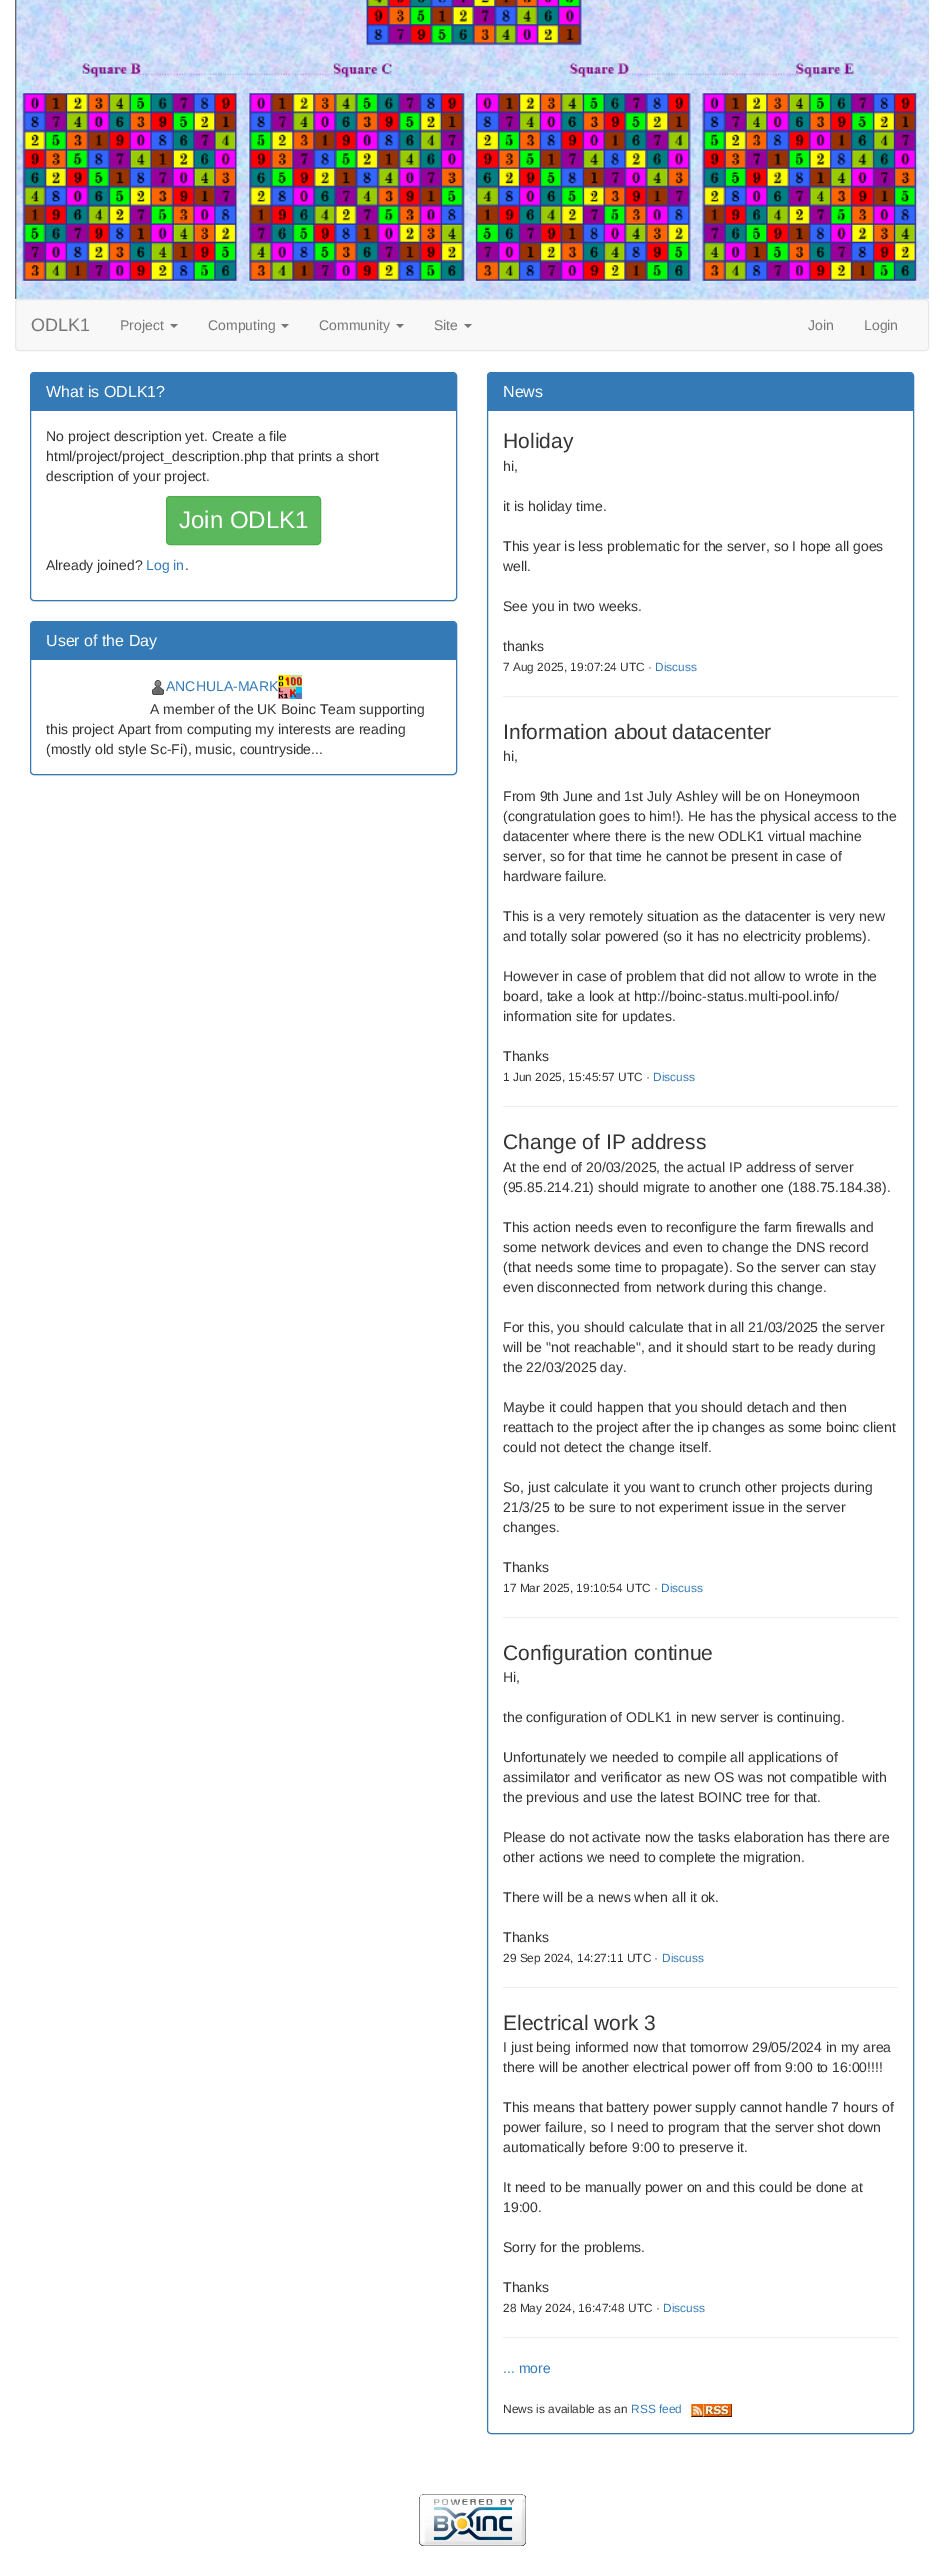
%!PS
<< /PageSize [944 2573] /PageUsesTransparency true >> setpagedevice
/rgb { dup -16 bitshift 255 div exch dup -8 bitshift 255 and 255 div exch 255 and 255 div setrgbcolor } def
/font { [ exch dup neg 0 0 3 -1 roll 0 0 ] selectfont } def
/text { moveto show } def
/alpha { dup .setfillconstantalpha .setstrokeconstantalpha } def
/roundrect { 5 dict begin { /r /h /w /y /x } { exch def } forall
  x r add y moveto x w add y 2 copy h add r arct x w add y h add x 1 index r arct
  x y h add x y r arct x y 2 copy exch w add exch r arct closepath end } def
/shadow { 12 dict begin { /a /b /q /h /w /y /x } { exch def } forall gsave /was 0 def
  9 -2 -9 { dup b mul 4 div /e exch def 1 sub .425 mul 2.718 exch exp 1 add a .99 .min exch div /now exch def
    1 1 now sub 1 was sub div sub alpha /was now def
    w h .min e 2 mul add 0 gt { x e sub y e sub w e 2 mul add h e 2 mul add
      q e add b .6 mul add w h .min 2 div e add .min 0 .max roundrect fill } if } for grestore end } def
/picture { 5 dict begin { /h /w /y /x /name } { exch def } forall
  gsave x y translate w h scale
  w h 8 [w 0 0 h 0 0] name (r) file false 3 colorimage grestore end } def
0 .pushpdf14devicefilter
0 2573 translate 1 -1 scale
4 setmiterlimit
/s1 { /LiberationSans-Regular 18 font 16#777777 rgb } def
/s2 { /LiberationSans-Regular 14 font 16#777777 rgb } def
/s3 { /LiberationSans-Regular 16 font 16#FFFFFF rgb } def
/s4 { /LiberationSans-Regular 14 font 16#333333 rgb } def
/s5 { /LiberationSans-Regular 24 font 16#FFFFFF rgb } def
/s6 { /LiberationSans-Regular 14 font 16#337AB7 rgb } def
/s7 { /LiberationSans-Regular 21 font 16#333333 rgb } def
/s8 { /LiberationSans-Regular 11.9 font 16#333333 rgb } def
/s9 { /LiberationSans-Regular 11.9 font 16#337AB7 rgb } def
16#FFFFFF rgb
0 0 944 2573 rectfill
(pic1.raw) 15 0 914 299 picture
16#F8F8F8 rgb
15.5 299.5 913 51 3.5 roundrect gsave fill grestore
16#E7E7E7 rgb
stroke
s1
(ODLK1) 31 331 text
s2
(Project) 120 330 text
170 324 moveto 178 324 lineto 174 328 lineto closepath fill
(Computing) 208 330 text
281 324 moveto 289 324 lineto 285 328 lineto closepath fill
(Community) 319 330 text
396 324 moveto 404 324 lineto 400 328 lineto closepath fill
(Site) 434 330 text
464 324 moveto 472 324 lineto 468 328 lineto closepath fill
(Join) 808 330 text
(Login) 864 330 text
16#000000 rgb
30 373 427 229 4 0.5 0.05 shadow
16#FFFFFF rgb
30.5 372.5 426 228 3.5 roundrect gsave fill grestore
16#337AB7 rgb
stroke
34 373 moveto 453 373 lineto 454.5 373 456 374.5 456 376 curveto 456 411 lineto 31 411 lineto 31 376 lineto 31 374.5 32.5 373 34 373 curveto closepath fill
s3
(What is ODLK1?) 46 397 text
s4
(No project description yet. Create a file) 46 441 text
(html/project/project_description.php that prints a short) 46 461 text
(description of your project.) 46 481 text
16#5CB85C rgb
166.5 496.5 154 48 3.5 roundrect gsave fill grestore
16#4CAE4C rgb
stroke
s5
(Join ODLK1) 179 528 text
s4
(Already joined?) 46 570 text
s6
(Log in) 146 570 text
s4
(.) 185 570 text
16#000000 rgb
30 622 427 154 4 0.5 0.05 shadow
16#FFFFFF rgb
30.5 621.5 426 153 3.5 roundrect gsave fill grestore
16#337AB7 rgb
stroke
34 622 moveto 453 622 lineto 454.5 622 456 623.5 456 625 curveto 456 660 lineto 31 660 lineto 31 625 lineto 31 623.5 32.5 622 34 622 curveto closepath fill
s3
(User of the Day) 46 646 text
(pic2.raw) 152 680 12 15 picture
s6
(ANCHULA-MARK) 166 691 text
(pic3.raw) 278 675 24 24 picture
s4
(A member of the UK Boinc Team supporting) 150 714 text
(this project Apart from computing my interests are reading) 46 734 text
(\(mostly old style Sc-Fi\), music, countryside...) 46 754 text
16#000000 rgb
487 373 427 2062 4 0.5 0.05 shadow
16#FFFFFF rgb
487.5 372.5 426 2061 3.5 roundrect gsave fill grestore
16#337AB7 rgb
stroke
491 373 moveto 910 373 lineto 911.5 373 913 374.5 913 376 curveto 913 411 lineto 488 411 lineto 488 376 lineto 488 374.5 489.5 373 491 373 curveto closepath fill
s3
(News) 503 397 text
s7
(Holiday) 503 448 text
s4
(hi,) 503 471 text
(it is holiday time.) 503 511 text
(This year is less problematic for the server, so I hope all goes) 503 551 text
(well.) 503 571 text
(See you in two weeks.) 503 611 text
(thanks) 503 651 text
s8
(7 Aug 2025, 19:07:24 UTC ·) 503 671 text
s9
(Discuss) 655 671 text
16#EEEEEE rgb
503 696 395 1 rectfill
s7
(Information about datacenter) 503 739 text
s4
(hi,) 503 761 text
(From 9th June and 1st July Ashley will be on Honeymoon) 503 801 text
(\(congratulation goes to him!\). He has the physical access to the) 503 821 text
(datacenter where there is the new ODLK1 virtual machine) 503 841 text
(server, so for that time he cannot be present in case of) 503 861 text
(hardware failure.) 503 881 text
(This is a very remotely situation as the datacenter is very new) 503 921 text
(and totally solar powered \(so it has no electricity problems\).) 503 941 text
(However in case of problem that did not allow to wrote in the) 503 981 text
(board, take a look at http://boinc-status.multi-pool.info/) 503 1001 text
(information site for updates.) 503 1021 text
(Thanks) 503 1061 text
s8
(1 Jun 2025, 15:45:57 UTC ·) 503 1081 text
s9
(Discuss) 653 1081 text
16#EEEEEE rgb
503 1106 395 1 rectfill
s7
(Change of IP address) 503 1149 text
s4
(At the end of 20/03/2025, the actual IP address of server) 503 1172 text
(\(95.85.214.21\) should migrate to another one \(188.75.184.38\).) 503 1192 text
(This action needs even to reconfigure the farm firewalls and) 503 1232 text
(some network devices and even to change the DNS record) 503 1252 text
(\(that needs some time to propagate\). So the server can stay) 503 1272 text
(even disconnected from network during this change.) 503 1292 text
(For this, you should calculate that in all 21/03/2025 the server) 503 1332 text
(will be "not reachable", and it should start to be ready during) 503 1352 text
(the 22/03/2025 day.) 503 1372 text
(Maybe it could happen that you should detach and then) 503 1412 text
(reattach to the project after the ip changes as some boinc client) 503 1432 text
(could not detect the change itself.) 503 1452 text
(So, just calculate it you want to crunch other projects during) 503 1492 text
(21/3/25 to be sure to not experiment issue in the server) 503 1512 text
(changes.) 503 1532 text
(Thanks) 503 1572 text
s8
(17 Mar 2025, 19:10:54 UTC ·) 503 1592 text
s9
(Discuss) 661 1592 text
16#EEEEEE rgb
503 1617 395 1 rectfill
s7
(Configuration continue) 503 1660 text
s4
(Hi,) 503 1682 text
(the configuration of ODLK1 in new server is continuing.) 503 1722 text
(Unfortunately we needed to compile all applications of) 503 1762 text
(assimilator and verificator as new OS was not compatible with) 503 1782 text
(the previous and use the latest BOINC tree for that.) 503 1802 text
(Please do not activate now the tasks elaboration has there are) 503 1842 text
(other actions we need to complete the migration.) 503 1862 text
(There will be a news when all it ok.) 503 1902 text
(Thanks) 503 1942 text
s8
(29 Sep 2024, 14:27:11 UTC ·) 503 1962 text
s9
(Discuss) 662 1962 text
16#EEEEEE rgb
503 1987 395 1 rectfill
s7
(Electrical work 3) 503 2030 text
s4
(I just being informed now that tomorrow 29/05/2024 in my area) 503 2052 text
(there will be another electrical power off from 9:00 to 16:00!!!!) 503 2072 text
(This means that battery power supply cannot handle 7 hours of) 503 2112 text
(power failure, so I need to program that the server shot down) 503 2132 text
(automatically before 9:00 to preserve it.) 503 2152 text
(It need to be manually power on and this could be done at) 503 2192 text
(19:00.) 503 2212 text
(Sorry for the problems.) 503 2252 text
(Thanks) 503 2292 text
s8
(28 May 2024, 16:47:48 UTC ·) 503 2312 text
s9
(Discuss) 663 2312 text
16#EEEEEE rgb
503 2337 395 1 rectfill
s6
(... more) 503 2373 text
s8
(News is available as an) 503 2413 text
s9
(RSS feed) 631 2413 text
(pic4.raw) 691 2404 41 13 picture
(pic5.raw) 419 2494 107 52 picture
.poppdf14devicefilter showpage
